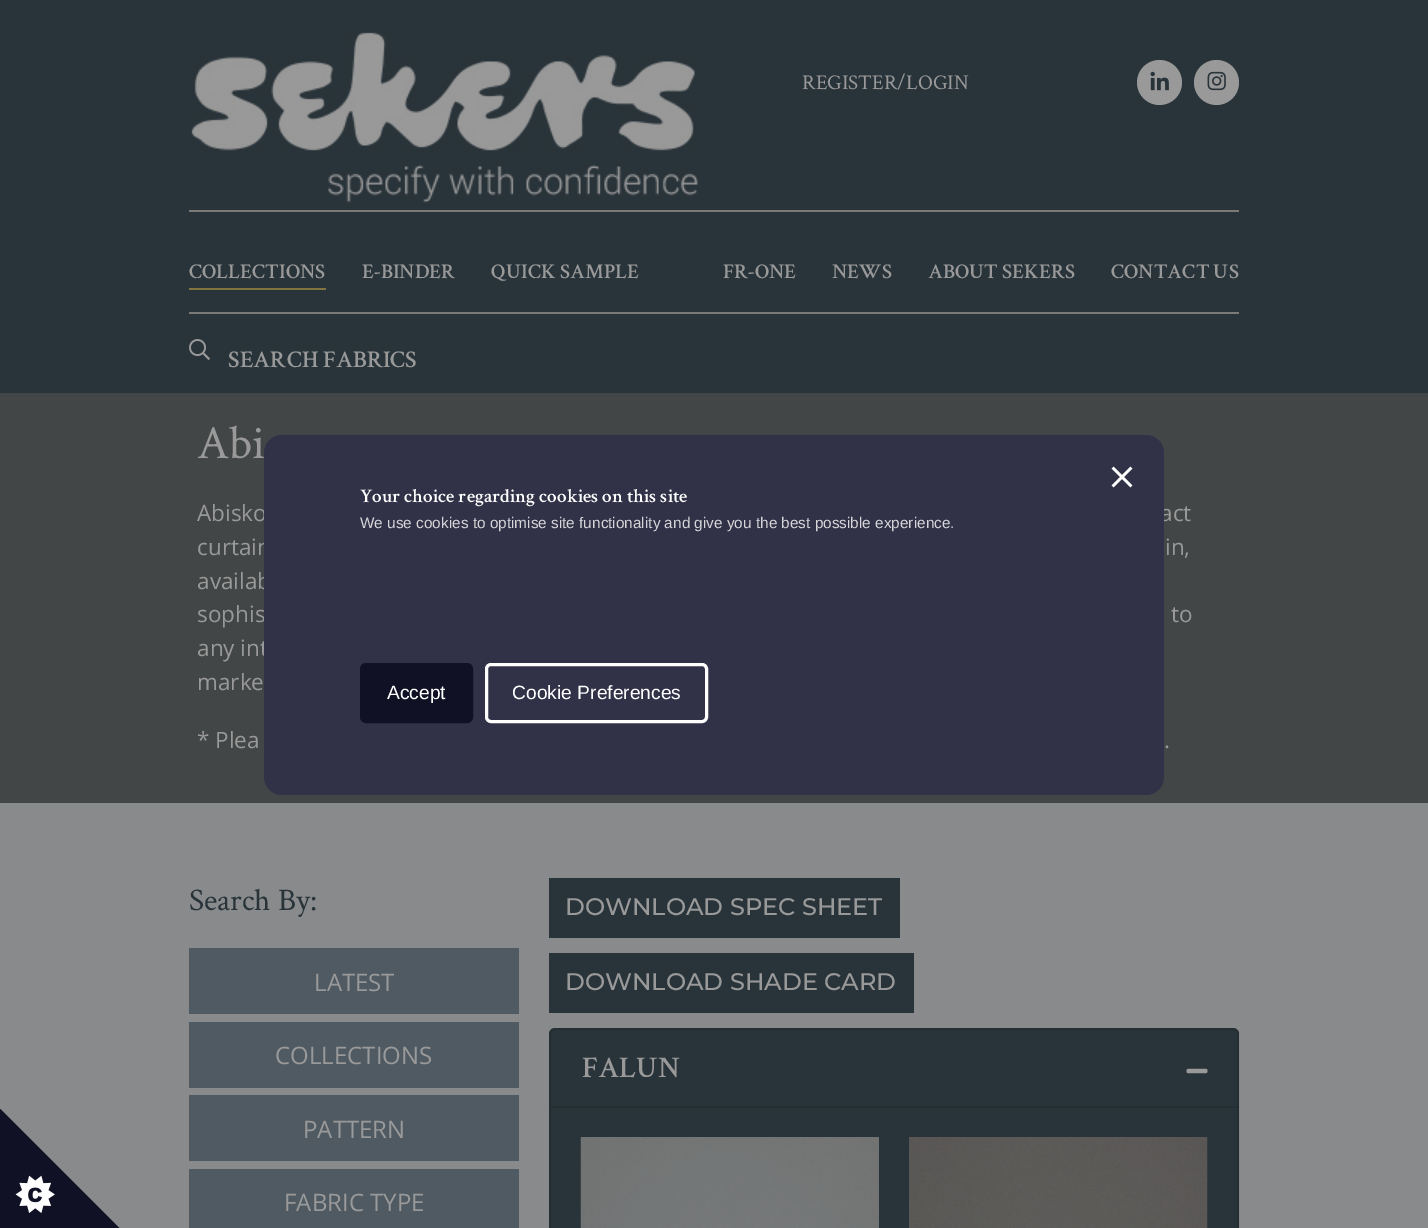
%!PS
<< /PageSize [1428 1228] /PageUsesTransparency true >> setpagedevice
/rgb { dup -16 bitshift 255 div exch dup -8 bitshift 255 and 255 div exch 255 and 255 div setrgbcolor } def
/font { [ exch dup neg 0 0 3 -1 roll 0 0 ] selectfont } def
/text { moveto show } def
/alpha { dup .setfillconstantalpha .setstrokeconstantalpha } def
/circle { newpath 0 360 arc closepath } def
/roundrect { 5 dict begin { /r /h /w /y /x } { exch def } forall
  x r add y moveto x w add y 2 copy h add r arct x w add y h add x 1 index r arct
  x y h add x y r arct x y 2 copy exch w add exch r arct closepath end } def
/picture { 5 dict begin { /h /w /y /x /name } { exch def } forall
  gsave x y translate w h scale
  w h 8 [w 0 0 h 0 0] name (r) file false 3 colorimage grestore end } def
0 .pushpdf14devicefilter
0 1228 translate 1 -1 scale
4 setmiterlimit
/s1 { /CrimsonText-Regular 21 font 16#999999 rgb } def
/s2 { /CrimsonText-SemiBold 21 font 16#999999 rgb } def
/s3 { /CrimsonText-SemiBold 24 font 16#999999 rgb } def
/s4 { /CrimsonText-Regular 48 font 16#999999 rgb } def
/s5 { /OpenSans-Regular 22.5 font 16#999999 rgb } def
/s6 { /CrimsonText-Regular 31.5 font 16#29343A rgb } def
/s7 { /OpenSans-Regular 24 font 16#999999 rgb } def
/s8 { /Montserrat-Thin 24 font 16#999999 rgb } def
/s9 { /CrimsonText-SemiBold 30 font 16#999999 rgb } def
/s10 { /CrimsonText-SemiBold 19.25 font 16#FFFFFF rgb } def
/s11 { /LiberationSans-Regular 15.35 font 16#D6D6DA rgb } def
/s12 { /LiberationSans-Regular 19.25 font 16#FFFFFF rgb } def
16#888A8B rgb
0 0 1428 1228 rectfill
16#29343A rgb
0 0 1428 393 rectfill
(pic1.raw) 191 32 507 171 picture
s1
(REGISTER/LOGIN) 802 89 text
1159.5 82.5 22.5 circle fill
(pic2.raw) 1150 71 19 20 picture
1216.5 82.5 22.5 circle fill
(pic3.raw) 1207 71 19 20 picture
16#7B7A78 rgb
189 210 1050 2 rectfill
16#817441 rgb
189 288 137 2 rectfill
s2
(COLLECTIONS) 189 278 text
(E-BINDER) 362 278 text
(QUICK SAMPLE) 491 278 text
(FR-ONE) 723 278 text
(NEWS) 832 278 text
(ABOUT SEKERS) 928 278 text
(CONTACT US) 1111 278 text
16#7B7A78 rgb
189 312 1050 2 rectfill
(pic4.raw) 189 339 21 21 picture
s3
(SEARCH FABRICS) 228 367 text
16#434646 rgb
0 393 1428 410 rectfill
s4
(Abi) 197 458 text
s5
(Abisko) 197 521 text
(act) 1160 521 text
(curtain) 197 555 text
(in,) 1165 555 text
(availab) 197 589 text
(sophis) 197 622 text
(to) 1171 622 text
(any int) 197 656 text
(marke) 197 690 text
(* Plea) 197 748 text
(.) 1164 748 text
s6
(Search By:) 189 910 text
16#4F5A63 rgb
189 948 330 66 rectfill
s7
(LATEST) 314 991 text
16#4F5A63 rgb
189 1022 330 66 rectfill
s7
(COLLECTIONS) 275 1064 text
16#4F5A63 rgb
189 1095 330 66 rectfill
s7
(PATTERN) 303 1138 text
16#4F5A63 rgb
189 1169 330 59 rectfill
s7
(FABRIC TYPE) 284 1211 text
16#29343A rgb
549 878 351 60 rectfill
s8
(DOWNLOAD SPEC SHEET) 565 915 text
16#29343A rgb
549 953 365 60 rectfill
s8
(DOWNLOAD SHADE CARD) 565 990 text
16#29343A rgb
549 1028 690 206 6 roundrect fill
0.12 alpha
16#000000 rgb
2 setlinewidth
550 1029 688 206 5 roundrect stroke
0.03 alpha
1237 1029 1 1 rectfill
0.12 alpha
551 1106 687 2 rectfill
1 alpha
s9
(FALUN) 582 1077 text
(pic5.raw) 1186 1068 22 6 picture
(pic6.raw) 580 1137 299 91 picture
(pic7.raw) 909 1137 299 91 picture
16#313147 rgb
264 435 900 360 18 roundrect fill
(pic8.raw) 1111 466 22 22 picture
s10
(Your choice regarding cookies on this site) 360 502 text
s11
(We use cookies to optimise site functionality and give you the best possible experience.) 360 528 text
16#111125 rgb
361.5 664.5 110 57 4.5 roundrect gsave fill grestore
3 setlinewidth
stroke
s12
(Accept) 387 699 text
486.5 664.5 220 57 4.5 roundrect stroke
(Cookie Preferences) 512 699 text
(pic9.raw) 0 1109 120 119 picture
.poppdf14devicefilter showpage
